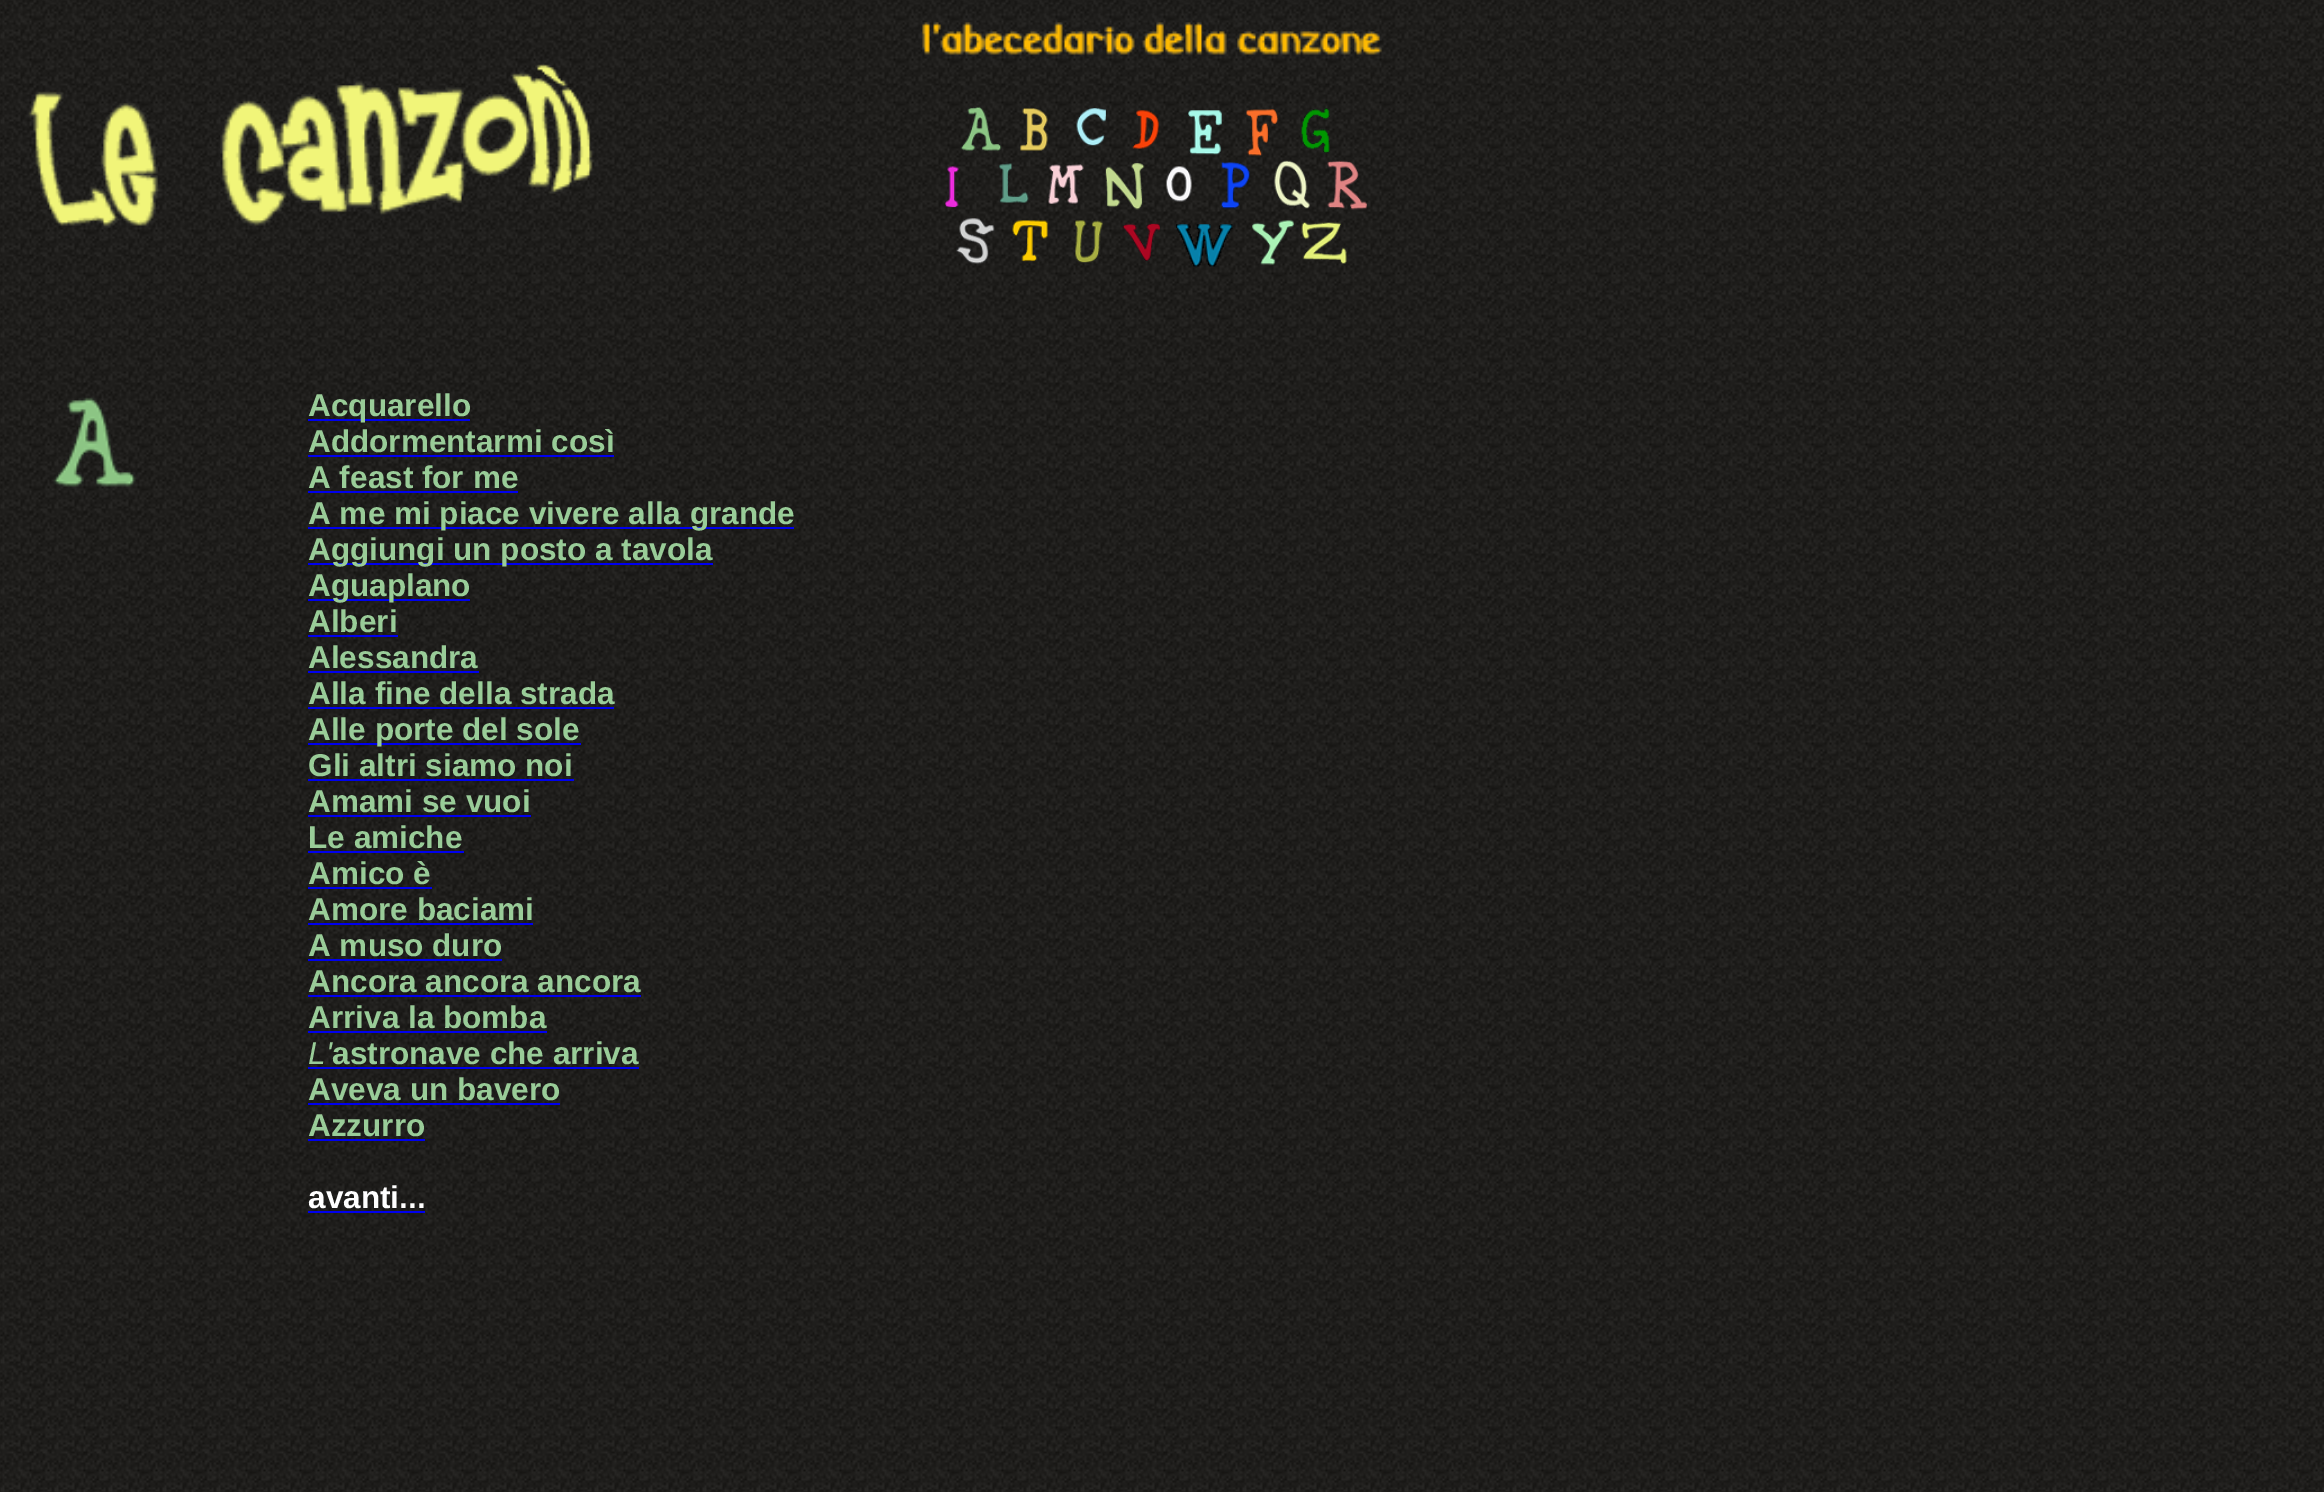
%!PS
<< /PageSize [2324 1492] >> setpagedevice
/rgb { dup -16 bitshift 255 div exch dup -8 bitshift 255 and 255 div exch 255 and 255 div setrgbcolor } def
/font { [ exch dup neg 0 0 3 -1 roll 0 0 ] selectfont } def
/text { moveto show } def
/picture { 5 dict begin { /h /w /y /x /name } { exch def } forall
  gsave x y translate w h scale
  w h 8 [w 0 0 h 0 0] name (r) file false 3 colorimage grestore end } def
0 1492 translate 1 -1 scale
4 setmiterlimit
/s1 { /LiberationSans-Bold 31.5 font 16#99CC98 rgb } def
/s2 { /LiberationSans-Italic 31.5 font 16#99CC98 rgb } def
/s3 { /LiberationSans-Bold 31.5 font 16#FFFFFF rgb } def
16#FFFFFF rgb
0 0 2324 1492 rectfill
(pic1.raw) 0 0 2324 1492 picture
(pic2.raw) 28 64 567 164 picture
(pic3.raw) 922 22 461 33 picture
(pic4.raw) 960 106 42 45 picture
(pic5.raw) 1020 108 28 43 picture
(pic6.raw) 1076 108 30 38 picture
(pic7.raw) 1132 110 27 39 picture
(pic8.raw) 1188 110 34 45 picture
(pic9.raw) 1246 109 33 47 picture
(pic10.raw) 1301 108 29 45 picture
(pic11.raw) 945 166 14 42 picture
(pic12.raw) 999 163 30 40 picture
(pic13.raw) 1048 164 36 40 picture
(pic14.raw) 1105 163 40 47 picture
(pic15.raw) 1166 166 26 36 picture
(pic16.raw) 1221 162 29 47 picture
(pic17.raw) 1274 160 36 49 picture
(pic18.raw) 1327 160 40 50 picture
(pic19.raw) 956 218 39 46 picture
(pic20.raw) 1012 220 36 42 picture
(pic21.raw) 1075 220 28 43 picture
(pic22.raw) 1122 223 38 38 picture
(pic23.raw) 1176 224 57 43 picture
(pic24.raw) 1252 220 42 45 picture
(pic25.raw) 1301 222 46 42 picture
(pic26.raw) 53 397 83 90 picture
16#0000EE rgb
308 419 162 2 rectfill
s1
(Acquarello) 308 416 text
(Addormentarmi così) 308 452 text
16#0000EE rgb
308 455 306 2 rectfill
s1
(A feast for me) 308 488 text
16#0000EE rgb
308 491 210 2 rectfill
308 527 486 2 rectfill
s1
(A me mi piace vivere alla grande) 308 524 text
16#0000EE rgb
308 563 405 2 rectfill
s1
(Aggiungi un posto a tavola) 308 560 text
16#0000EE rgb
308 599 162 2 rectfill
s1
(Aguaplano) 308 596 text
(Alberi) 308 632 text
16#0000EE rgb
308 635 90 2 rectfill
s1
(Alessandra) 308 668 text
16#0000EE rgb
308 671 171 2 rectfill
s1
(Alla fine della strada) 308 704 text
16#0000EE rgb
308 707 306 2 rectfill
308 743 273 2 rectfill
s1
(Alle porte del sole) 308 740 text
(Gli altri siamo noi) 308 776 text
16#0000EE rgb
308 779 266 2 rectfill
s1
(Amami se vuoi) 308 812 text
16#0000EE rgb
308 815 223 2 rectfill
s1
(Le amiche) 308 848 text
16#0000EE rgb
308 851 156 2 rectfill
s1
(Amico è) 308 884 text
16#0000EE rgb
308 887 124 2 rectfill
s1
(Amore baciami) 308 920 text
16#0000EE rgb
308 923 225 2 rectfill
s1
(A muso duro) 308 956 text
16#0000EE rgb
308 959 194 2 rectfill
s1
(Ancora ancora ancora) 308 992 text
16#0000EE rgb
308 995 333 2 rectfill
s1
(Arriva la bomba) 308 1028 text
16#0000EE rgb
308 1031 239 2 rectfill
s2
(L') 308 1064 text
16#0000EE rgb
308 1067 331 2 rectfill
s1
(astronave che arriva) 332 1064 text
(Aveva un bavero) 308 1100 text
16#0000EE rgb
308 1103 252 2 rectfill
s1
(Azzurro) 308 1136 text
16#0000EE rgb
308 1139 117 2 rectfill
s3
(avanti...) 308 1208 text
16#0000EE rgb
308 1211 117 2 rectfill
showpage
